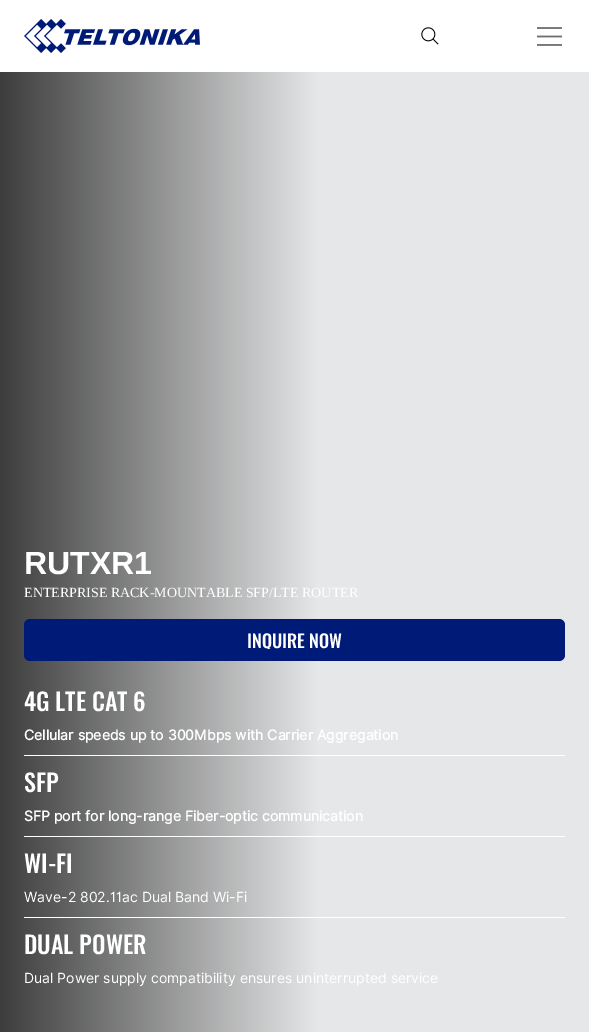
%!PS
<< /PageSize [589 1032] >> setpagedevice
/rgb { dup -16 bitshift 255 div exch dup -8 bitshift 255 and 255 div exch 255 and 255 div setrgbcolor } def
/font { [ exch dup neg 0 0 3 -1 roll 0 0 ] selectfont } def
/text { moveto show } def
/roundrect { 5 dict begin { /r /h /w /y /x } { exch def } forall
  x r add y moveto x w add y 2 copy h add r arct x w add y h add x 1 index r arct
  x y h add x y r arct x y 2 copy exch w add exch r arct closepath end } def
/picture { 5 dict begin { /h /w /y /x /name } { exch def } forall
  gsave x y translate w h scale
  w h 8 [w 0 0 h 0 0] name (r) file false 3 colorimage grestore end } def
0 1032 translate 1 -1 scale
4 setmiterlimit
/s1 { /LiberationSans-Bold 32 font 16#FFFFFF rgb } def
/s2 { /LiberationSerif-Regular 14 font 16#FFFFFF rgb } def
/s3 { /Oswald-Medium 18 font 16#FFFFFF rgb } def
/s4 { /Oswald-Medium 24 font 16#FFFFFF rgb } def
/s5 { /Inter-Bold 14 font 16#FFFFFF rgb } def
/s6 { /Inter-Regular 14 font 16#FFFFFF rgb } def
16#FFFFFF rgb
0 0 589 1032 rectfill
(pic1.raw) 24 19 176 34 picture
(pic2.raw) 421 27 18 18 picture
(pic3.raw) 537 27 25 19 picture
gsave 0 72 moveto 589 72 lineto 589 1032 lineto 0 1032 lineto closepath clip newpath
<< /ShadingType 2 /ColorSpace /DeviceRGB /Coords [0 562 589 562] /Extend [true true] /Function << /FunctionType 3 /Domain [0 1] /Functions [<< /FunctionType 2 /Domain [0 1] /C0 [0.239 0.239 0.239] /C1 [0.902 0.906 0.91] /N 1 >> << /FunctionType 2 /Domain [0 1] /C0 [0.902 0.906 0.91] /C1 [0.902 0.906 0.91] /N 1 >>] /Bounds [0.54] /Encode [0 1 0 1] >> >> shfill grestore
s1
(RUTXR1) 24 574 text
s2
(ENTERPRISE RACK-MOUNTABLE SFP/LTE ROUTER) 24 597 text
16#001A77 rgb
24 619 541 42 6 roundrect fill
gsave
40 631 509 18 rectclip
s3
(INQUIRE NOW) 247 648 text
grestore
s4
(4G LTE CAT 6) 24 711 text
s5
(Cellular speeds up to 300Mbps with Carrier Aggregation) 24 740 text
24 755 541 1 rectfill
s4
(SFP) 24 792 text
s5
(SFP port for long-range Fiber-optic communication) 24 821 text
24 836 541 1 rectfill
s4
(WI-FI) 24 873 text
s6
(Wave-2 802.11ac Dual Band Wi-Fi) 24 902 text
24 917 541 1 rectfill
s4
(DUAL POWER) 24 954 text
s6
(Dual Power supply compatibility ensures uninterrupted service) 24 983 text
showpage
